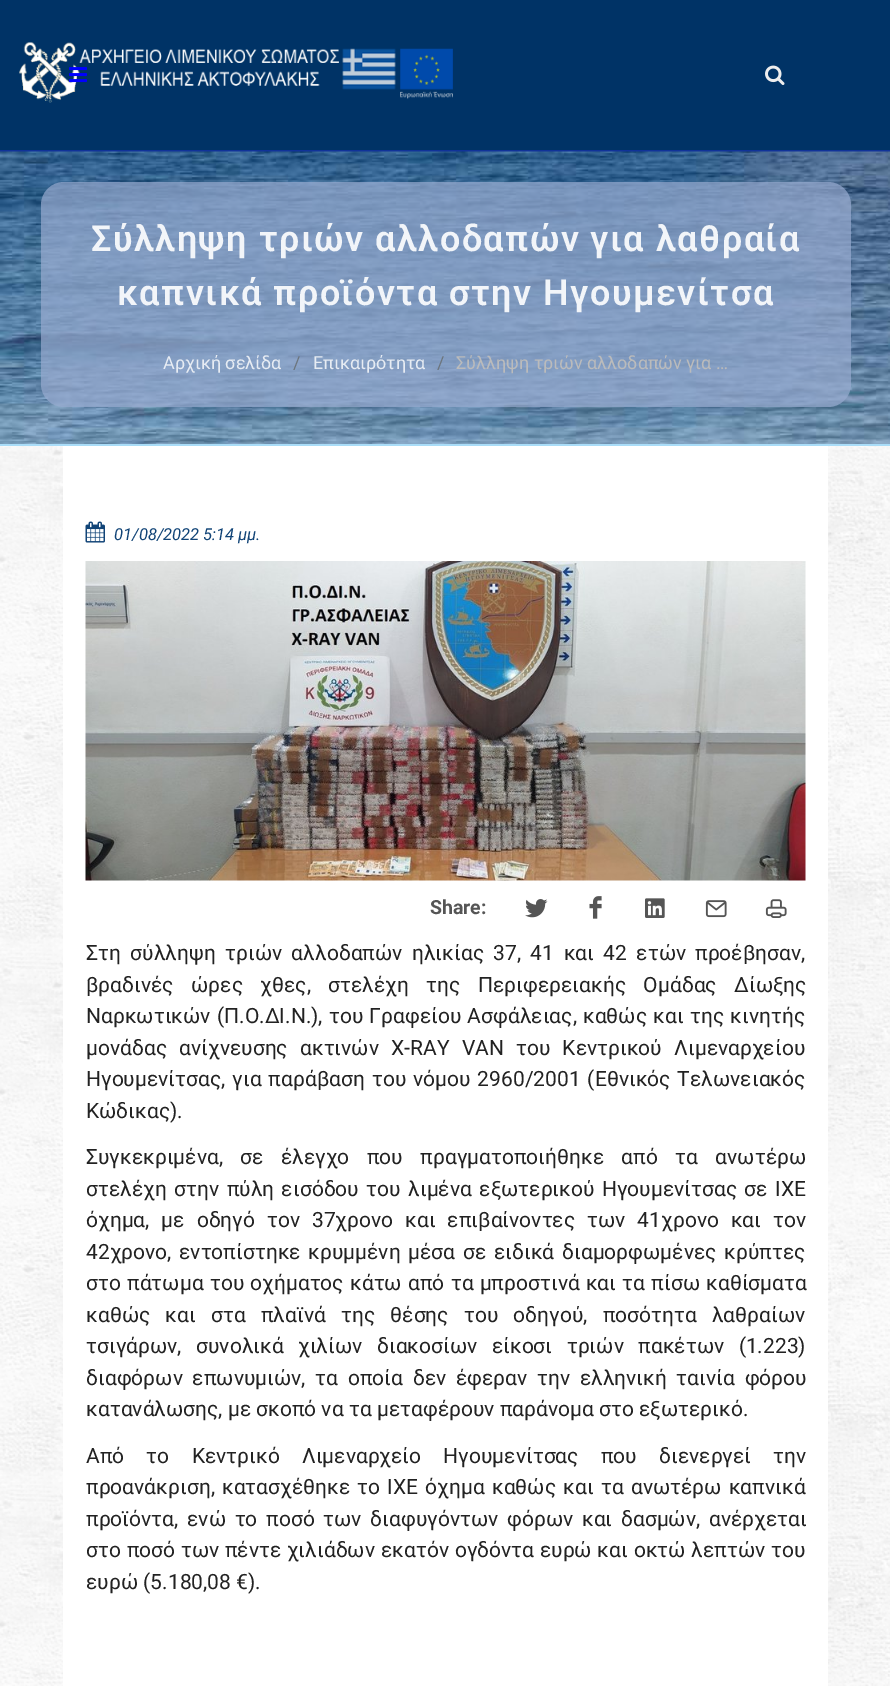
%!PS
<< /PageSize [890 1686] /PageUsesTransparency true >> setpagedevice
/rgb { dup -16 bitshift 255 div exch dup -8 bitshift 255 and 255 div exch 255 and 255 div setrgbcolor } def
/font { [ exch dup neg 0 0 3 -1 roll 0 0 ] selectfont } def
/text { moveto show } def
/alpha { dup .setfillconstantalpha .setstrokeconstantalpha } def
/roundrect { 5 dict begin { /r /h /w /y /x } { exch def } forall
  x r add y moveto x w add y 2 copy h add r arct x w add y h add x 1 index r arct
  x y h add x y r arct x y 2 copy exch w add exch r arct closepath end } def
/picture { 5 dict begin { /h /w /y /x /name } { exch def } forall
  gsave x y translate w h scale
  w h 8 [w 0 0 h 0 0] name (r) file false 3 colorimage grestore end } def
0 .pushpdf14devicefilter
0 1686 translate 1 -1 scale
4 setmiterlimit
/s1 { /Roboto-Regular 18 font 16#E7ECF3 rgb } def
/s2 { /Roboto-Regular 18 font 16#6C757D rgb } def
/s3 { /Roboto-Regular 18 font 16#BBBBBB rgb } def
/s4 { /Roboto-Italic 16.5 font 16#114477 rgb } def
/s5 { /Roboto-Bold 19.5 font 16#555555 rgb } def
/s6 { /Roboto-Regular 21 font 16#222222 rgb } def
16#FFFFFF rgb
0 0 890 1686 rectfill
(pic1.raw) 0 446 890 1240 picture
16#113399 rgb
0 150 890 2 rectfill
16#003366 rgb
0 0 890 150 rectfill
(pic2.raw) 19 42 434 61 picture
(pic3.raw) 765 65 20 20 picture
(pic4.raw) 69 67 18 16 picture
(pic5.raw) 0 151 890 293 picture
16#AADDF8 rgb
0 444 890 2 rectfill
0.7 alpha
16#98ABD0 rgb
41 182 810 225 23 roundrect fill
/Roboto-SemiBold 36 font
1 alpha
16#F2F5F9 rgb
91 251 moveto 1.5 0 (Σύλληψη τριών αλλοδαπών) ashow
590 251 moveto 1.5 0 (για) ashow
656 251 moveto 1.5 0 (λαθραία) ashow
117 305 moveto 1.5 0 (καπνικά προϊόντα στην Ηγουμενίτσα) ashow
s1
(Αρχική σελίδα) 163 369 text
s2
(/) 293 369 text
s1
(Επικαιρότητα) 313 369 text
s2
(/) 437 369 text
s3
(Σύλληψη τριών αλλοδαπών για …) 456 369 text
16#FFFFFF rgb
63 446 765 1240 rectfill
(pic6.raw) 85 521 20 22 picture
s4
(01/08/2022 5:14 μμ.) 114 540 text
(pic7.raw) 85 561 721 320 picture
s5
(Share:) 430 914 text
(pic8.raw) 525 899 23 19 picture
(pic9.raw) 589 896 13 23 picture
(pic10.raw) 645 898 20 20 picture
(pic11.raw) 705 900 22 18 picture
(pic12.raw) 765 899 22 19 picture
/Roboto-Regular 21 font
16#222222 rgb
86 960 moveto 4.25 0 32 (Στη σύλληψη τριών αλλοδαπών ηλικίας 37, 41 και 42 ετών) widthshow
(προέβησαν,) 695 960 text
86 992 moveto 12.25 0 32 (βραδινές ώρες χθες, στελέχη της Περιφερειακής Ομάδας Δίωξης) widthshow
86 1023 moveto 1 0 32 (Ναρκωτικών \(Π.Ο.ΔΙ.Ν.\), του Γραφείου Ασφάλειας, καθώς και της κινητής) widthshow
86 1055 moveto 7 0 32 (μονάδας ανίχνευσης ακτινών X-RAY VAN του Κεντρικού Λιμεναρχείου) widthshow
86 1086 moveto 1.75 0 32 (Ηγουμενίτσας, για παράβαση του νόμου 2960/2001 \(Εθνικός Τελωνειακός) widthshow
(Κώδικας\).) 86 1118 text
86 1164 moveto 12.25 0 32 (Συγκεκριμένα, σε έλεγχο που πραγματοποιήθηκε από τα ανωτέρω) widthshow
86 1196 moveto 2.25 0 32 (στελέχη στην πύλη εισόδου του λιμένα εξωτερικού Ηγουμενίτσας σε ΙΧΕ) widthshow
86 1227 moveto 6.75 0 32 (όχημα, με οδηγό τον 37χρονο και επιβαίνοντες των 41χρονο και τον) widthshow
(42χρονο,) 86 1259 text
179 1259 moveto 2.5 0 32 (εντοπίστηκε κρυμμένη μέσα σε ειδικά διαμορφωμένες κρύπτες) widthshow
86 1290 moveto 1 0 32 (στο πάτωμα του οχήματος κάτω από τα μπροστινά και τα πίσω καθίσματα) widthshow
86 1322 moveto 10 0 32 (καθώς και στα πλαϊνά της θέσης του οδηγού, ποσότητα λαθραίων) widthshow
86 1353 moveto 9.25 0 32 (τσιγάρων, συνολικά χιλίων διακοσίων είκοσι τριών πακέτων \(1.223\)) widthshow
86 1385 moveto 4.5 0 32 (διαφόρων επωνυμιών, τα οποία δεν έφεραν την ελληνική ταινία φόρου) widthshow
(κατανάλωσης, με σκοπό να τα μεταφέρουν παράνομα στο εξωτερικό.) 86 1416 text
86 1463 moveto 17 0 32 (Από το Κεντρικό Λιμεναρχείο Ηγουμενίτσας που διενεργεί την) widthshow
86 1494 moveto 2 0 32 (προανάκριση, κατασχέθηκε το ΙΧΕ όχημα καθώς και τα ανωτέρω καπνικά) widthshow
86 1526 moveto 3.5 0 32 (προϊόντα, ενώ το ποσό των διαφυγόντων φόρων και δασμών, ανέρχεται) widthshow
86 1557 moveto 0.5 0 32 (στο ποσό των πέντε χιλιάδων) widthshow
381 1557 moveto 0.5 0 32 (εκατόν ογδόντα ευρώ και οκτώ λεπτών του) widthshow
(ευρώ \(5.180,08 €\).) 86 1589 text
.poppdf14devicefilter showpage
